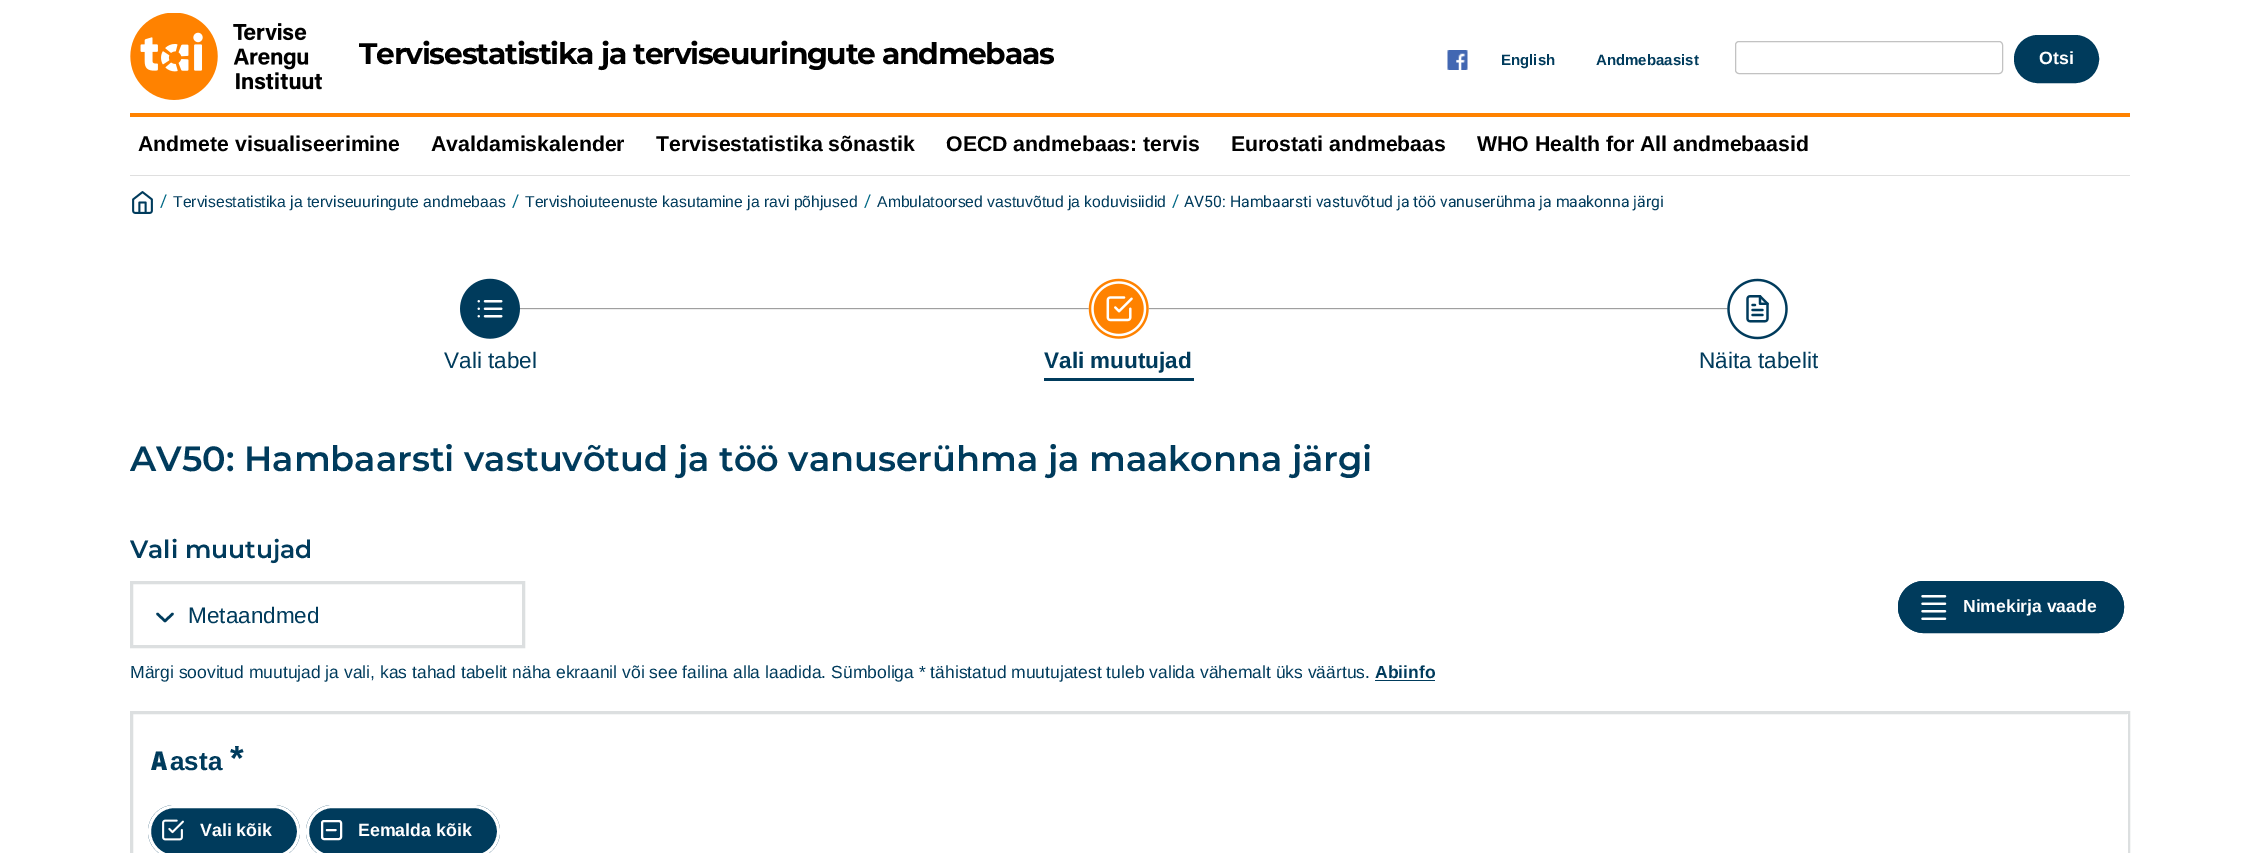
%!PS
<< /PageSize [2259 853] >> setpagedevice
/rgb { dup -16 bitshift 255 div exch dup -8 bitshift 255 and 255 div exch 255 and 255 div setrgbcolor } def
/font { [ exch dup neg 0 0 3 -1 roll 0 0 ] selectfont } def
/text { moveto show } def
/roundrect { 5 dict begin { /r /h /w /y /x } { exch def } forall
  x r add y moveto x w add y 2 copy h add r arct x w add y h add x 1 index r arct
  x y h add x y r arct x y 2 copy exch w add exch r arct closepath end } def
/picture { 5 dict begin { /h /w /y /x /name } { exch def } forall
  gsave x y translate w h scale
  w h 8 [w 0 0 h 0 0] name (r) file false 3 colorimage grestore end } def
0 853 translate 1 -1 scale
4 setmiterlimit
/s1 { /LiberationSans-Bold 15 font 16#003B5C rgb } def
/s2 { /LiberationSans-Bold 17.75 font 16#FFFFFF rgb } def
/s3 { /LiberationSans-Bold 21.25 font 16#000000 rgb } def
/s4 { /Roboto-Regular 17.5 font 16#006885 rgb } def
/s5 { /LiberationSans-Regular 15.75 font 16#003B5C rgb } def
/s6 { /Roboto-Regular 15.75 font 16#003B5C rgb } def
/s7 { /LiberationSans-Regular 22.5 font 16#003B5C rgb } def
/s8 { /LiberationSans-Bold 22.5 font 16#003B5C rgb } def
/s9 { /Montserrat-SemiBold 35 font 16#003B5C rgb } def
/s10 { /Montserrat-SemiBold 25 font 16#003B5C rgb } def
/s11 { /LiberationSans-Bold 17.5 font 16#FFFFFF rgb } def
/s12 { /LiberationSans-Regular 17.5 font 16#003B5C rgb } def
/s13 { /LiberationSans-Bold 17.5 font 16#003B5C rgb } def
/s14 { /NotoSans-Black 26 font 16#003B5C rgb } def
/s15 { /LiberationSans-Bold 26 font 16#003B5C rgb } def
/s16 { /LiberationSans-Bold 35 font 16#003B5C rgb } def
16#FFFFFF rgb
0 0 2259 853 rectfill
16#FF8200 rgb
130 113 2000 4 rectfill
(pic1.raw) 130 13 192 87 picture
/Montserrat-Bold 29.75 font
16#000000 rgb
359 64 moveto -1.25 0 (Tervisestatistika ja terviseuuringute andmebaas) ashow
(pic2.raw) 1447 50 21 20 picture
s1
(English) 1501 65 text
(Andmebaasist) 1596 65 text
16#C2C2C2 rgb
1735.5 41.5 267 32 3.5 roundrect stroke
16#003B5C rgb
2015.5 36.5 82 45 22.5 roundrect gsave fill grestore
3 setlinewidth
stroke
s2
(Otsi) 2039 64 text
s3
(Andmete visualiseerimine) 138 151 text
(Avaldamiskalender) 431 151 text
(Tervisestatistika sõnastik) 656 151 text
(OECD andmebaas: tervis) 946 151 text
(Eurostati andmebaas) 1231 151 text
(WHO Health for All andmebaasid) 1477 151 text
16#DFDFDF rgb
130 175 2000 1 rectfill
(pic3.raw) 132 191 21 23 picture
s4
(/) 160 207 text
s5
(Tervisestatistika ja terviseuuringute andmebaas) 173 207 text
s4
(/) 512 207 text
s5
(Tervishoiuteenuste kasutamine ja ravi põhjused) 525 207 text
s4
(/) 864 207 text
s5
(Ambulatoorsed vastuvõtud ja koduvisiidid) 877 207 text
s4
(/) 1172 207 text
s6
(AV50: Hambaarsti vastuvõtud ja töö vanuserühma ja maakonna järgi) 1184 207 text
16#9F9F9F rgb
519 308 570 1 rectfill
16#EEEEEE rgb
519 309 570 1 rectfill
16#9F9F9F rgb
1148 308 580 1 rectfill
16#EEEEEE rgb
1148 309 580 1 rectfill
(pic4.raw) 460 278 60 61 picture
s7
(Vali tabel) 444 368 text
(pic5.raw) 1088 278 61 61 picture
1044 378 150 3 rectfill
s8
(Vali muutujad) 1044 368 text
(pic6.raw) 1727 278 61 62 picture
s7
(Näita tabelit) 1699 368 text
s9
(AV50: Hambaarsti vastuvõtud ja töö vanuserühma ja maakonna järgi) 130 471 text
s10
(Vali muutujad) 130 558 text
16#DCDFE0 rgb
131.5 582.5 392 64 rectstroke
16#003B5C rgb
2.5 setlinewidth
1 setlinecap
1 setlinejoin
157.5 614 moveto 165 621 lineto 172.5 614 lineto stroke
s7
(Metaandmed) 188 623 text
1898 581 226 52 26 roundrect fill
(pic7.raw) 1921 595 26 25 picture
3 setlinewidth
0 setlinecap
0 setlinejoin
1899.5 582.5 223 49 24.5 roundrect stroke
s11
(Nimekirja vaade) 1963 612 text
s12
(Märgi soovitud muutujad ja vali, kas tahad tabelit näha ekraanil või see failina alla laadida. Sümboliga * tähistatud muutujatest tuleb valida vähemalt üks väärtus.) 130 678 text
s13
(Abiinfo) 1375 678 text
1375 680 60 1 rectfill
16#DCDFE0 rgb
131.5 712.5 1997 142 rectstroke
16#FFFFFF rgb
2127 714 1 139 rectfill
s14
(A) 151 770 text
s15
(asta) 170 770 text
s16
(*) 230 770 text
148 805 152 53 26.5 roundrect fill
(pic8.raw) 162 819 22 22 picture
16#FFFFFF rgb
149.5 806.5 149 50 25 roundrect stroke
s2
(Vali kõik) 200 836 text
16#003B5C rgb
306 805 194 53 26.5 roundrect fill
16#FFFFFF rgb
2 setlinewidth
322 821 19 18 2 roundrect stroke
2.1 setlinewidth
1 setlinecap
1 setlinejoin
327 830 moveto 335.5 830 lineto stroke
3 setlinewidth
0 setlinecap
0 setlinejoin
307.5 806.5 191 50 25 roundrect stroke
(Eemalda kõik) 358 836 text
showpage
